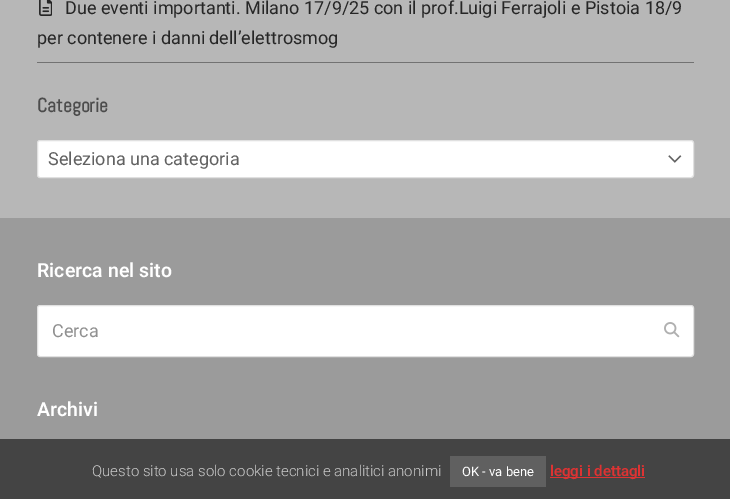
%!PS
<< /PageSize [730 499] >> setpagedevice
/rgb { dup -16 bitshift 255 div exch dup -8 bitshift 255 and 255 div exch 255 and 255 div setrgbcolor } def
/font { [ exch dup neg 0 0 3 -1 roll 0 0 ] selectfont } def
/text { moveto show } def
/roundrect { 5 dict begin { /r /h /w /y /x } { exch def } forall
  x r add y moveto x w add y 2 copy h add r arct x w add y h add x 1 index r arct
  x y h add x y r arct x y 2 copy exch w add exch r arct closepath end } def
/picture { 5 dict begin { /h /w /y /x /name } { exch def } forall
  gsave x y translate w h scale
  w h 8 [w 0 0 h 0 0] name (r) file false 3 colorimage grestore end } def
0 499 translate 1 -1 scale
4 setmiterlimit
/s1 { /Roboto-Regular 18 font 16#262626 rgb } def
/s2 { /Abel-Bold 19.5 font 16#4C4C4C rgb } def
/s3 { /Roboto-Regular 18 font 16#616161 rgb } def
/s4 { /Roboto-SemiBold 19.5 font 16#FFFFFF rgb } def
/s5 { /Roboto-Regular 18 font 16#909090 rgb } def
/s6 { /Roboto-Light 15 font 16#CCCCCC rgb } def
/s7 { /Roboto-Regular 13 font 16#FFFFFF rgb } def
/s8 { /Roboto-SemiBold 15 font 16#DD3333 rgb } def
16#B7B7B7 rgb
0 0 730 499 rectfill
16#727272 rgb
37 62 657 1 rectfill
(pic1.raw) 39 0 13 16 picture
s1
(Due eventi importanti. Milano 17/9/25 con il prof.Luigi Ferrajoli e Pistoia 18/9) 65 14 text
(per contenere i danni dell’elettrosmog) 37 44 text
s2
(Categorie) 37 112 text
16#FFFFFF rgb
37.5 140.5 656 37 2.5 roundrect gsave fill grestore
16#E0E0E0 rgb
stroke
s3
(Seleziona una categoria) 48 165 text
(pic2.raw) 668 155 14 8 picture
16#9B9B9B rgb
0 218 730 221 rectfill
s4
(Ricerca nel sito) 37 277 text
37.5 305.5 656 51 2.5 roundrect gsave fill grestore
16#E1E1E1 rgb
stroke
s5
(Cerca) 52 337 text
(pic3.raw) 664 322 16 16 picture
s4
(Archivi) 37 416 text
16#444444 rgb
0 439 730 60 rectfill
s6
(Questo sito usa solo cookie tecnici e analitici anonimi) 92 476 text
16#606060 rgb
450 456 96 31 rectfill
s7
(OK - va bene) 462 476 text
16#DD3333 rgb
550 477 95 1 rectfill
s8
(leggi i dettagli) 550 476 text
showpage
